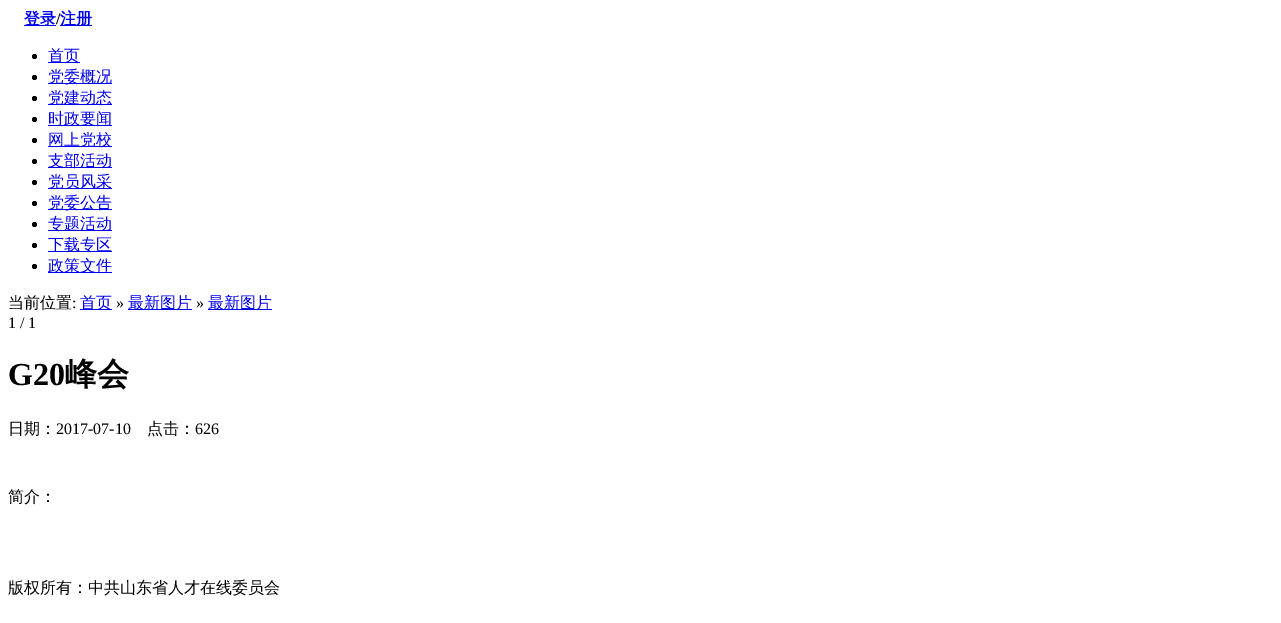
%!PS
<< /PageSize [1281 623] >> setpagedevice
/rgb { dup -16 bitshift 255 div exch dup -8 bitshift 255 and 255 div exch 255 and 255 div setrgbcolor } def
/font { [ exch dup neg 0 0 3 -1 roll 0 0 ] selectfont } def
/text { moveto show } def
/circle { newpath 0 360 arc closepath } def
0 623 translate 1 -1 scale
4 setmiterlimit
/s1 { /WenQuanYiZenHei-Bold 16 font 16#0000EE rgb } def
/s2 { /LiberationSerif-Bold 16 font 16#000000 rgb } def
/s3 { /WenQuanYiZenHei-Medium 16 font 16#0000EE rgb } def
/s4 { /WenQuanYiZenHei-Medium 16 font 16#000000 rgb } def
/s5 { /LiberationSerif-Regular 16 font 16#000000 rgb } def
/s6 { /LiberationSerif-Bold 32 font 16#000000 rgb } def
/s7 { /WenQuanYiZenHei-Bold 32 font 16#000000 rgb } def
16#FFFFFF rgb
0 0 1281 623 rectfill
16#0000EE rgb
24 25 32 1 rectfill
s1
(登录) 24 24 text
s2
(/) 56 24 text
16#0000EE rgb
60 25 32 1 rectfill
s1
(注册) 60 24 text
16#000000 rgb
34.5 56.5 2.5 circle fill
16#0000EE rgb
48 62 32 1 rectfill
s3
(首页) 48 61 text
16#000000 rgb
34.5 77.5 2.5 circle fill
16#0000EE rgb
48 83 64 1 rectfill
(党委概况) 48 82 text
16#000000 rgb
34.5 98.5 2.5 circle fill
16#0000EE rgb
48 104 64 1 rectfill
(党建动态) 48 103 text
16#000000 rgb
34.5 119.5 2.5 circle fill
16#0000EE rgb
48 125 64 1 rectfill
(时政要闻) 48 124 text
16#000000 rgb
34.5 140.5 2.5 circle fill
16#0000EE rgb
48 146 64 1 rectfill
(网上党校) 48 145 text
16#000000 rgb
34.5 161.5 2.5 circle fill
16#0000EE rgb
48 167 64 1 rectfill
(支部活动) 48 166 text
16#000000 rgb
34.5 182.5 2.5 circle fill
16#0000EE rgb
48 188 64 1 rectfill
(党员风采) 48 187 text
16#000000 rgb
34.5 203.5 2.5 circle fill
16#0000EE rgb
48 209 64 1 rectfill
(党委公告) 48 208 text
16#000000 rgb
34.5 224.5 2.5 circle fill
16#0000EE rgb
48 230 64 1 rectfill
(专题活动) 48 229 text
16#000000 rgb
34.5 245.5 2.5 circle fill
16#0000EE rgb
48 251 64 1 rectfill
(下载专区) 48 250 text
16#000000 rgb
34.5 266.5 2.5 circle fill
16#0000EE rgb
48 272 64 1 rectfill
(政策文件) 48 271 text
s4
(当前位置) 8 308 text
s5
(:) 72 308 text
16#0000EE rgb
80 309 32 1 rectfill
s3
(首页) 80 308 text
s5
(») 116 308 text
16#0000EE rgb
128 309 64 1 rectfill
s3
(最新图片) 128 308 text
s5
(») 196 308 text
16#0000EE rgb
208 309 64 1 rectfill
s3
(最新图片) 208 308 text
s5
(1 / 1) 8 328 text
s6
(G20) 8 385 text
s7
(峰会) 65 385 text
s4
(日期：) 8 434 text
s5
(2017-07-10) 56 434 text
s4
(点击：) 147 434 text
s5
(626) 195 434 text
s4
(简介：) 8 502 text
(版权所有：中共山东省人才在线委员会) 8 593 text
showpage
